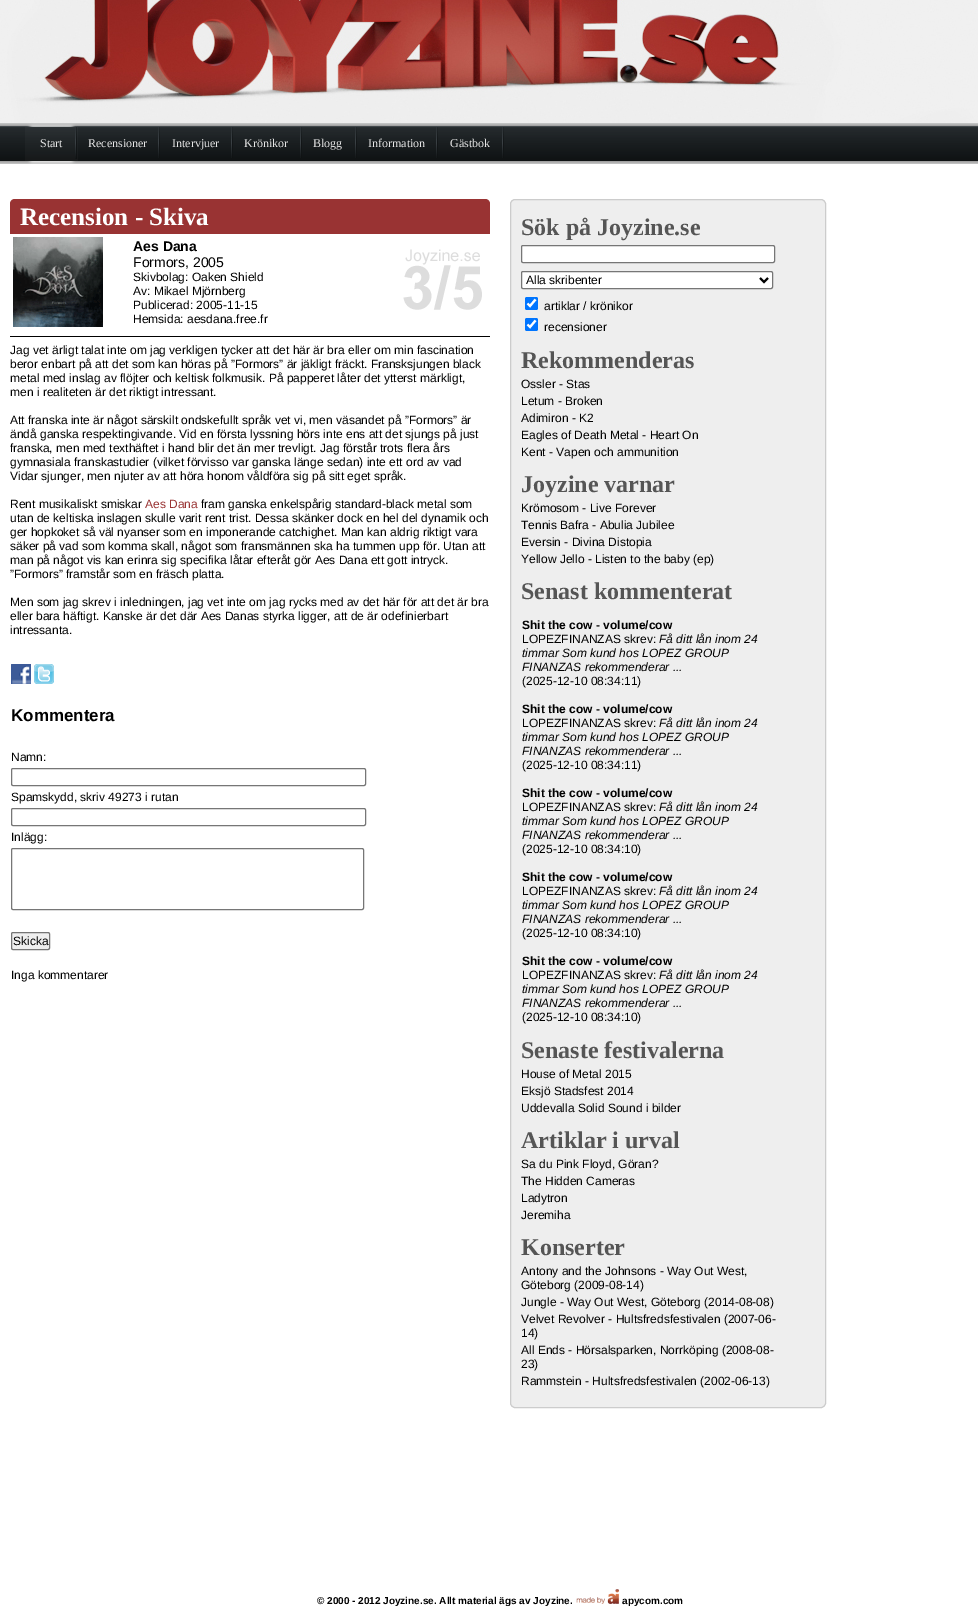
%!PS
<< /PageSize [978 1606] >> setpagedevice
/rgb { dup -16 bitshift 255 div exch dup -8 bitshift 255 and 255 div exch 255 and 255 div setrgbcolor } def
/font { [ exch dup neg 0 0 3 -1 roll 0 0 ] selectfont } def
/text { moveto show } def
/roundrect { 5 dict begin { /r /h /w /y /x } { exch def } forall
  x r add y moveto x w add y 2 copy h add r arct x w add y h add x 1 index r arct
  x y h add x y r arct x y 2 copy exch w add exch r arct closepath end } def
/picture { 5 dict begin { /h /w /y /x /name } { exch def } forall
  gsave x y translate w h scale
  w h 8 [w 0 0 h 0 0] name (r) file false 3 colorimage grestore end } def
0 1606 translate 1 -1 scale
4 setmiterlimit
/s1 { /LiberationSerif-Regular 12 font 16#E5E5E5 rgb } def
/s2 { /LiberationSerif-Bold 25 font 16#FFFFFF rgb } def
/s3 { /LiberationSans-Bold 14 font 16#000000 rgb } def
/s4 { /LiberationSans-Regular 14 font 16#000000 rgb } def
/s5 { /LiberationSans-Regular 12 font 16#000000 rgb } def
/s6 { /LiberationSans-Regular 12 font 16#993333 rgb } def
/s7 { /LiberationSans-Bold 17 font 16#000000 rgb } def
/s8 { /LiberationSerif-Bold 24 font 16#555555 rgb } def
/s9 { /LiberationSans-Bold 12 font 16#000000 rgb } def
/s10 { /LiberationSans-Italic 12 font 16#000000 rgb } def
/s11 { /LiberationSans-Bold 10 font 16#000000 rgb } def
16#FFFFFF rgb
0 0 978 1606 rectfill
(pic1.raw) 0 0 978 123 picture
16#DFDFDF rgb
0 123 978 41 rectfill
(pic2.raw) 0 123 978 41 picture
(pic3.raw) 65 123 13 41 picture
(pic4.raw) 25 123 40 41 picture
(pic5.raw) 300 127 2 31 picture
s1
(Krönikor) 244 147 text
(pic5.raw) 355 127 2 31 picture
(Blogg) 313 147 text
(pic5.raw) 436 127 2 31 picture
(Information) 368 147 text
(pic5.raw) 502 127 2 31 picture
(Gästbok) 450 147 text
(pic6.raw) 75 127 2 32 picture
(Start) 40 147 text
(pic5.raw) 158 127 2 31 picture
(Recensioner) 88 147 text
(pic5.raw) 231 127 2 31 picture
(Intervjuer) 172 147 text
16#993333 rgb
15 199 moveto 485 199 lineto 488 199 490 201 490 204 curveto 490 234 lineto 10 234 lineto 10 204 lineto 10 201 12 199 15 199 curveto closepath fill
s2
(Recension - Skiva) 20 225 text
(pic7.raw) 13 237 90 90 picture
s3
(Aes Dana) 133 251 text
s4
(Formors, 2005) 133 267 text
s5
(Skivbolag: Oaken Shield) 133 281 text
(Av: Mikael Mjörnberg) 133 295 text
(Publicerad: 2005-11-15) 133 309 text
(Hemsida: aesdana.free.fr) 133 323 text
(pic8.raw) 403 249 79 61 picture
10 336 480 1 rectfill
(Jag vet ärligt talat inte om jag verkligen tycker att det här är bra eller om min fascination) 10 354 text
(beror enbart på att det som kan höras på ”Formors” är jäkligt fräckt. Fransksjungen black) 10 368 text
(metal med inslag av flöjter och keltisk folkmusik. På papperet låter det ytterst märkligt,) 10 382 text
(men i realiteten är det riktigt intressant.) 10 396 text
(Att franska inte är något särskilt ondskefullt språk vet vi, men väsandet på ”Formors” är) 10 424 text
(ändå ganska respektingivande. Vid en första lyssning hörs inte ens att det sjungs på just) 10 438 text
(franska, men med texthäftet i hand blir det än mer trevligt. Jag förstår trots flera års) 10 452 text
(gymnasiala franskastudier \(vilket förvisso var ganska länge sedan\) inte ett ord av vad) 10 466 text
(Vidar sjunger, men njuter av att höra honom våldföra sig på sitt eget språk.) 10 480 text
(Rent musikaliskt smiskar) 10 508 text
s6
(Aes Dana) 145 508 text
s5
(fram ganska enkelspårig standard-black metal som) 201 508 text
(utan de keltiska inslagen skulle varit rent trist. Dessa skänker dock en hel del dynamik och) 10 522 text
(ger hopkoket så väl nyanser som en imponerande catchighet. Man kan aldrig riktigt vara) 10 536 text
(säker på vad som komma skall, något som fransmännen ska ha tummen upp för. Utan att) 10 550 text
(man på något vis kan erinra sig specifika låtar efteråt gör Aes Dana ett gott intryck.) 10 564 text
(”Formors” framstår som en fräsch platta.) 10 578 text
(Men som jag skrev i inledningen, jag vet inte om jag rycks med av det här för att det är bra) 10 606 text
(eller bara häftigt. Kanske är det där Aes Danas styrka ligger, att de är odefinierbart) 10 620 text
(intressanta.) 10 634 text
(pic9.raw) 11 664 20 20 picture
(pic10.raw) 34 664 20 20 picture
s7
(Kommentera) 11 721 text
s5
(Namn:) 11 761 text
16#767676 rgb
11.5 768.5 354 17 1.5 roundrect stroke
s5
(Spamskydd, skriv 49273 i rutan) 11 801 text
16#767676 rgb
11.5 808.5 354 17 1.5 roundrect stroke
s5
(Inlägg:) 11 841 text
16#767676 rgb
11.5 848.5 352 61 1.5 roundrect stroke
16#EFEFEF rgb
11.5 932.5 38 17 1.5 roundrect gsave fill grestore
16#767676 rgb
stroke
s5
(Skicka) 13 945 text
(Inga kommentarer) 11 979 text
16#EEEEEE rgb
510.5 199.5 315 1208 4.5 roundrect gsave fill grestore
16#CCCCCC rgb
stroke
s8
(Sök på Joyzine.se) 521 235 text
16#FFFFFF rgb
521.5 245.5 253 17 1.5 roundrect gsave fill grestore
16#767676 rgb
stroke
16#FFFFFF rgb
521.5 271.5 251 17 1.5 roundrect gsave fill grestore
16#767676 rgb
stroke
16#000000 rgb
2 setlinewidth
760 278 moveto 764 282 lineto 768 278 lineto stroke
s5
(Alla skribenter) 526 284 text
16#0075FF rgb
525 297 13 13 2 roundrect fill
16#FFFFFF rgb
2.1 setlinewidth
527.5 303.5 moveto 530 306 lineto 535.5 299.5 lineto stroke
s5
(artiklar / krönikor) 544 310 text
16#0075FF rgb
525 318 13 13 2 roundrect fill
16#FFFFFF rgb
527.5 324.5 moveto 530 327 lineto 535.5 320.5 lineto stroke
s5
(recensioner) 544 331 text
s8
(Rekommenderas) 521 368 text
s5
(Ossler - Stas) 521 388 text
(Letum - Broken) 521 405 text
(Adimiron - K2) 521 422 text
(Eagles of Death Metal - Heart On) 521 439 text
(Kent - Vapen och ammunition) 521 456 text
s8
(Joyzine varnar) 521 492 text
s5
(Krömosom - Live Forever) 521 512 text
(Tennis Bafra - Abulia Jubilee) 521 529 text
(Eversin - Divina Distopia) 521 546 text
(Yellow Jello - Listen to the baby \(ep\)) 521 563 text
s8
(Senast kommenterat) 521 599 text
s9
(Shit the cow - volume/cow) 522 629 text
s5
(LOPEZFINANZAS skrev:) 522 643 text
s10
(Få ditt lån inom 24) 659 643 text
(timmar Som kund hos LOPEZ GROUP) 522 657 text
(FINANZAS rekommenderar ...) 522 671 text
s5
(\(2025-12-10 08:34:11\)) 522 685 text
s9
(Shit the cow - volume/cow) 522 713 text
s5
(LOPEZFINANZAS skrev:) 522 727 text
s10
(Få ditt lån inom 24) 659 727 text
(timmar Som kund hos LOPEZ GROUP) 522 741 text
(FINANZAS rekommenderar ...) 522 755 text
s5
(\(2025-12-10 08:34:11\)) 522 769 text
s9
(Shit the cow - volume/cow) 522 797 text
s5
(LOPEZFINANZAS skrev:) 522 811 text
s10
(Få ditt lån inom 24) 659 811 text
(timmar Som kund hos LOPEZ GROUP) 522 825 text
(FINANZAS rekommenderar ...) 522 839 text
s5
(\(2025-12-10 08:34:10\)) 522 853 text
s9
(Shit the cow - volume/cow) 522 881 text
s5
(LOPEZFINANZAS skrev:) 522 895 text
s10
(Få ditt lån inom 24) 659 895 text
(timmar Som kund hos LOPEZ GROUP) 522 909 text
(FINANZAS rekommenderar ...) 522 923 text
s5
(\(2025-12-10 08:34:10\)) 522 937 text
s9
(Shit the cow - volume/cow) 522 965 text
s5
(LOPEZFINANZAS skrev:) 522 979 text
s10
(Få ditt lån inom 24) 659 979 text
(timmar Som kund hos LOPEZ GROUP) 522 993 text
(FINANZAS rekommenderar ...) 522 1007 text
s5
(\(2025-12-10 08:34:10\)) 522 1021 text
s8
(Senaste festivalerna) 521 1058 text
s5
(House of Metal 2015) 521 1078 text
(Eksjö Stadsfest 2014) 521 1095 text
(Uddevalla Solid Sound i bilder) 521 1112 text
s8
(Artiklar i urval) 521 1148 text
s5
(Sa du Pink Floyd, Göran?) 521 1168 text
(The Hidden Cameras) 521 1185 text
(Ladytron) 521 1202 text
(Jeremiha) 521 1219 text
s8
(Konserter) 521 1255 text
s5
(Antony and the Johnsons - Way Out West,) 521 1275 text
(Göteborg \(2009-08-14\)) 521 1289 text
(Jungle - Way Out West, Göteborg \(2014-08-08\)) 521 1306 text
(Velvet Revolver - Hultsfredsfestivalen \(2007-06-) 521 1323 text
(14\)) 521 1337 text
(All Ends - Hörsalsparken, Norrköping \(2008-08-) 521 1354 text
(23\)) 521 1368 text
(Rammstein - Hultsfredsfestivalen \(2002-06-13\)) 521 1385 text
s11
(© 2000 - 2012 Joyzine.se. Allt material ägs av Joyzine.) 317 1604 text
(pic11.raw) 576 1589 43 15 picture
(apycom.com) 622 1604 text
showpage
